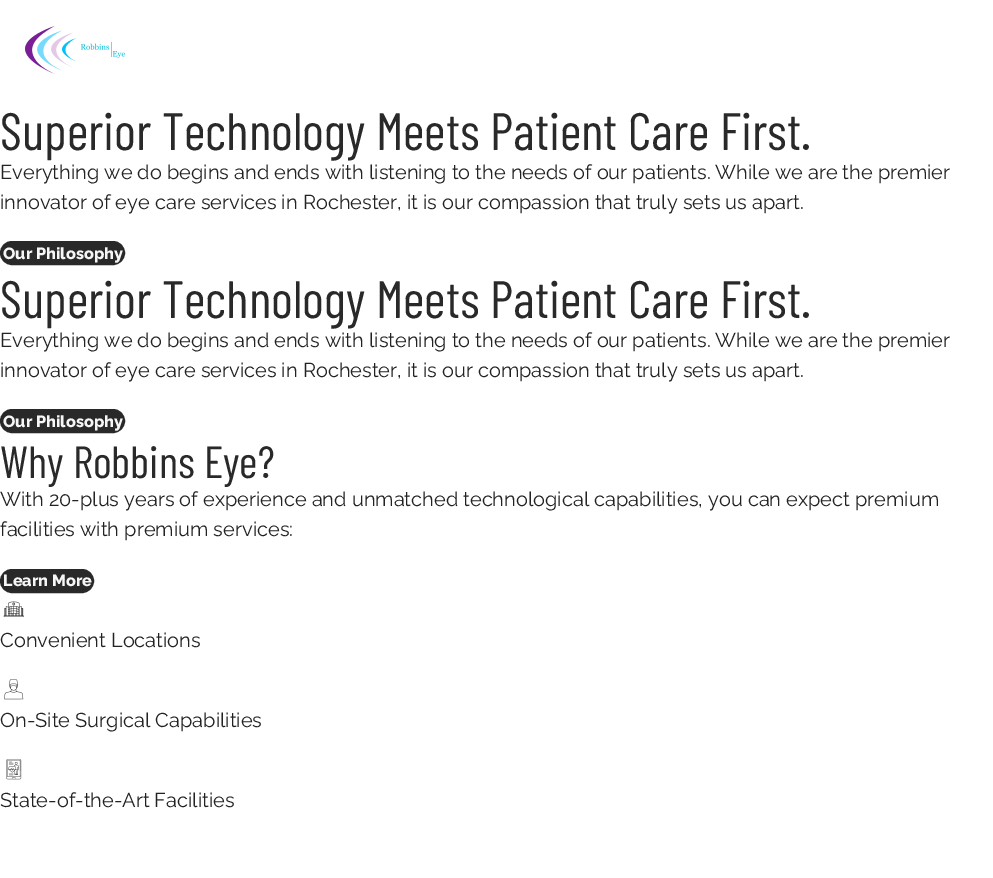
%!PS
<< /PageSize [993 878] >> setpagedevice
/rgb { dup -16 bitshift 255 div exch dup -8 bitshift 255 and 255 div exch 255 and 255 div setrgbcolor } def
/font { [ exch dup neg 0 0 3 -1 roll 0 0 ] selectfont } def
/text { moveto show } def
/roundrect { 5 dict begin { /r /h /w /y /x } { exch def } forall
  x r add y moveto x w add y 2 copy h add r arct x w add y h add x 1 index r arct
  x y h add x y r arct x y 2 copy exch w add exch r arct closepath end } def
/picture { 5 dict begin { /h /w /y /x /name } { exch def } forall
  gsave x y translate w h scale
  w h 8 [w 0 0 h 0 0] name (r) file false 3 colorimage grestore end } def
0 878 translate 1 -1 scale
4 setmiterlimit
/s1 { /BarlowCondensed-Regular 52.5 font 16#292929 rgb } def
/s2 { /Raleway-Regular 20 font 16#212322 rgb } def
/s3 { /Raleway-ExtraBold 16.25 font 16#F6F6F6 rgb } def
/s4 { /BarlowCondensed-Regular 45 font 16#292929 rgb } def
16#FFFFFF rgb
0 0 993 878 rectfill
(pic1.raw) 25 26 100 48 picture
s1
(Superior Technology Meets Patient Care First.) 0 150 text
s2
(Everything we do begins and ends with listening to the needs of our patients. While we are the premier) 0 179 text
(innovator of eye care services in Rochester, it is our compassion that truly sets us apart.) 0 209 text
16#292929 rgb
1.5 242.5 122 21 10.5 roundrect gsave fill grestore
3 setlinewidth
stroke
s3
(Our Philosophy) 3 259 text
s1
(Superior Technology Meets Patient Care First.) 0 318 text
s2
(Everything we do begins and ends with listening to the needs of our patients. While we are the premier) 0 347 text
(innovator of eye care services in Rochester, it is our compassion that truly sets us apart.) 0 377 text
16#292929 rgb
1.5 410.5 122 21 10.5 roundrect gsave fill grestore
stroke
s3
(Our Philosophy) 3 427 text
s4
(Why Robbins Eye?) 0 478 text
s2
(With 20-plus years of experience and unmatched technological capabilities, you can expect premium) 0 506 text
(facilities with premium services:) 0 536 text
16#292929 rgb
1.5 570.5 91 21 10.5 roundrect gsave fill grestore
stroke
s3
(Learn More) 3 586 text
(pic2.raw) 3 601 21 16 picture
s2
(Convenient Locations) 0 647 text
(pic3.raw) 4 679 20 21 picture
(On-Site Surgical Capabilities) 0 727 text
(pic4.raw) 6 759 16 21 picture
(State-of-the-Art Facilities) 0 807 text
showpage
